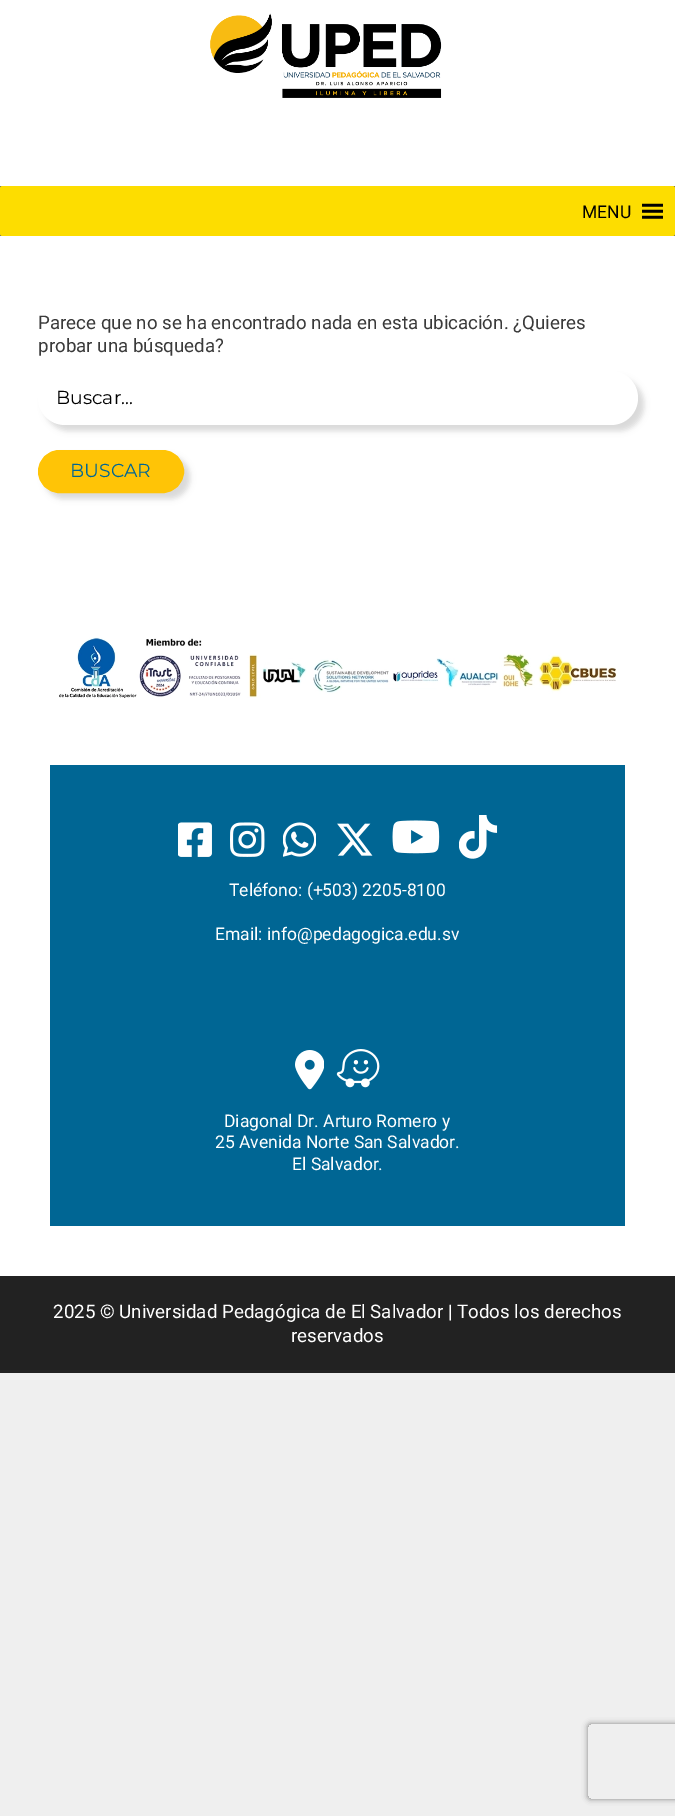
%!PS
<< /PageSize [675 1816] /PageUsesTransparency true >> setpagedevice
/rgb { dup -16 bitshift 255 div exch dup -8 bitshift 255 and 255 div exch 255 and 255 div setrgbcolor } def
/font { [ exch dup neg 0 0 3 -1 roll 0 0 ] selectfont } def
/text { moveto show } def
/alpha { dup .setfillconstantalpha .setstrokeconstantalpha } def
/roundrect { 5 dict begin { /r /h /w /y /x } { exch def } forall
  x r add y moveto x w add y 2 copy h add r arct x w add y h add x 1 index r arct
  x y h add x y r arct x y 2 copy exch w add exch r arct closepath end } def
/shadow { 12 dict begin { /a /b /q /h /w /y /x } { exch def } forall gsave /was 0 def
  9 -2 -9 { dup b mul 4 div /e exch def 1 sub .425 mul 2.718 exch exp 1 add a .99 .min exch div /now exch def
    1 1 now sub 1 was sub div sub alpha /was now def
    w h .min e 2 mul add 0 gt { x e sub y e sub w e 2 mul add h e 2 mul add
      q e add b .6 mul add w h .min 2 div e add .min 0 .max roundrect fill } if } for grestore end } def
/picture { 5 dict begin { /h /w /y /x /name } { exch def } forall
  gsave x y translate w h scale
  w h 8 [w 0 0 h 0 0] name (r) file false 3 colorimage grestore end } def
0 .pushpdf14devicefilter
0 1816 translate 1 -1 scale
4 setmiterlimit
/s1 { /Roboto-Regular 17.5 font 16#000000 rgb } def
/s2 { /Roboto-Regular 18.75 font 16#3A3A3A rgb } def
/s3 { /Montserrat-Regular 18.75 font 16#000000 rgb } def
/s4 { /Montserrat-Regular 18.75 font 16#006694 rgb } def
/s5 { /Roboto-Regular 17.5 font 16#FFFFFF rgb } def
/s6 { /Roboto-Regular 18.75 font 16#FFFFFF rgb } def
16#EFEFEF rgb
0 0 675 1816 rectfill
16#FFFFFF rgb
0 0 675 186 rectfill
(pic1.raw) 210 13 232 85 picture
16#636363 rgb
0 186 675 50 rectfill
16#FDDD00 rgb
0 186 675 50 2.5 roundrect fill
s1
(MENU) 582 218 text
(pic2.raw) 642 203 21 16 picture
16#FFFFFF rgb
0 236 675 1040 rectfill
s2
(Parece que no se ha encontrado nada en esta ubicación. ¿Quieres) 38 329 text
(probar una búsqueda?) 38 352 text
16#444444 rgb
44 378 600 53 26.5 3 0.2 shadow
16#FFFFFF rgb
38 371 600 54 27 roundrect fill
s3
(Buscar...) 56 404 text
16#444444 rgb
44 456 146 43 21.5 3 0.2 shadow
16#FFC406 rgb
38.5 450.5 145 42 21 roundrect gsave fill grestore
stroke
s4
(BUSCAR) 70 477 text
(pic3.raw) 59 637 558 61 picture
50 765 575 461 rectfill
(pic4.raw) 178 822 34 35 picture
(pic5.raw) 230 822 35 35 picture
(pic6.raw) 283 822 33 35 picture
(pic7.raw) 337 823 36 33 picture
(pic8.raw) 392 820 48 34 picture
(pic9.raw) 459 815 39 44 picture
s5
(Teléfono: \(+503\) 2205-8100) 229 896 text
(Email: info@pedagogica.edu.sv) 215 940 text
(pic10.raw) 295 1050 29 40 picture
(pic11.raw) 336 1049 44 39 picture
(Diagonal Dr. Arturo Romero y) 224 1127 text
(25 Avenida Norte San Salvador.) 215 1148 text
(El Salvador.) 292 1170 text
16#222222 rgb
0 1276 675 97 rectfill
s6
(2025 © Universidad Pedagógica de El Salvador | Todos los derechos) 53 1318 text
(reservados) 291 1342 text
gsave
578 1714 moveto 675 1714 lineto 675 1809 lineto 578 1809 lineto closepath 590.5 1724 moveto 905.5 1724 lineto 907 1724 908 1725 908 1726.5 curveto 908 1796.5 lineto 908 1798 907 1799 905.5 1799 curveto 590.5 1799 lineto 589 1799 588 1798 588 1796.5 curveto 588 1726.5 lineto 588 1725 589 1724 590.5 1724 curveto closepath eoclip newpath
16#808080 rgb
588 1724 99 75 2.5 3 1 shadow
grestore
.poppdf14devicefilter showpage
